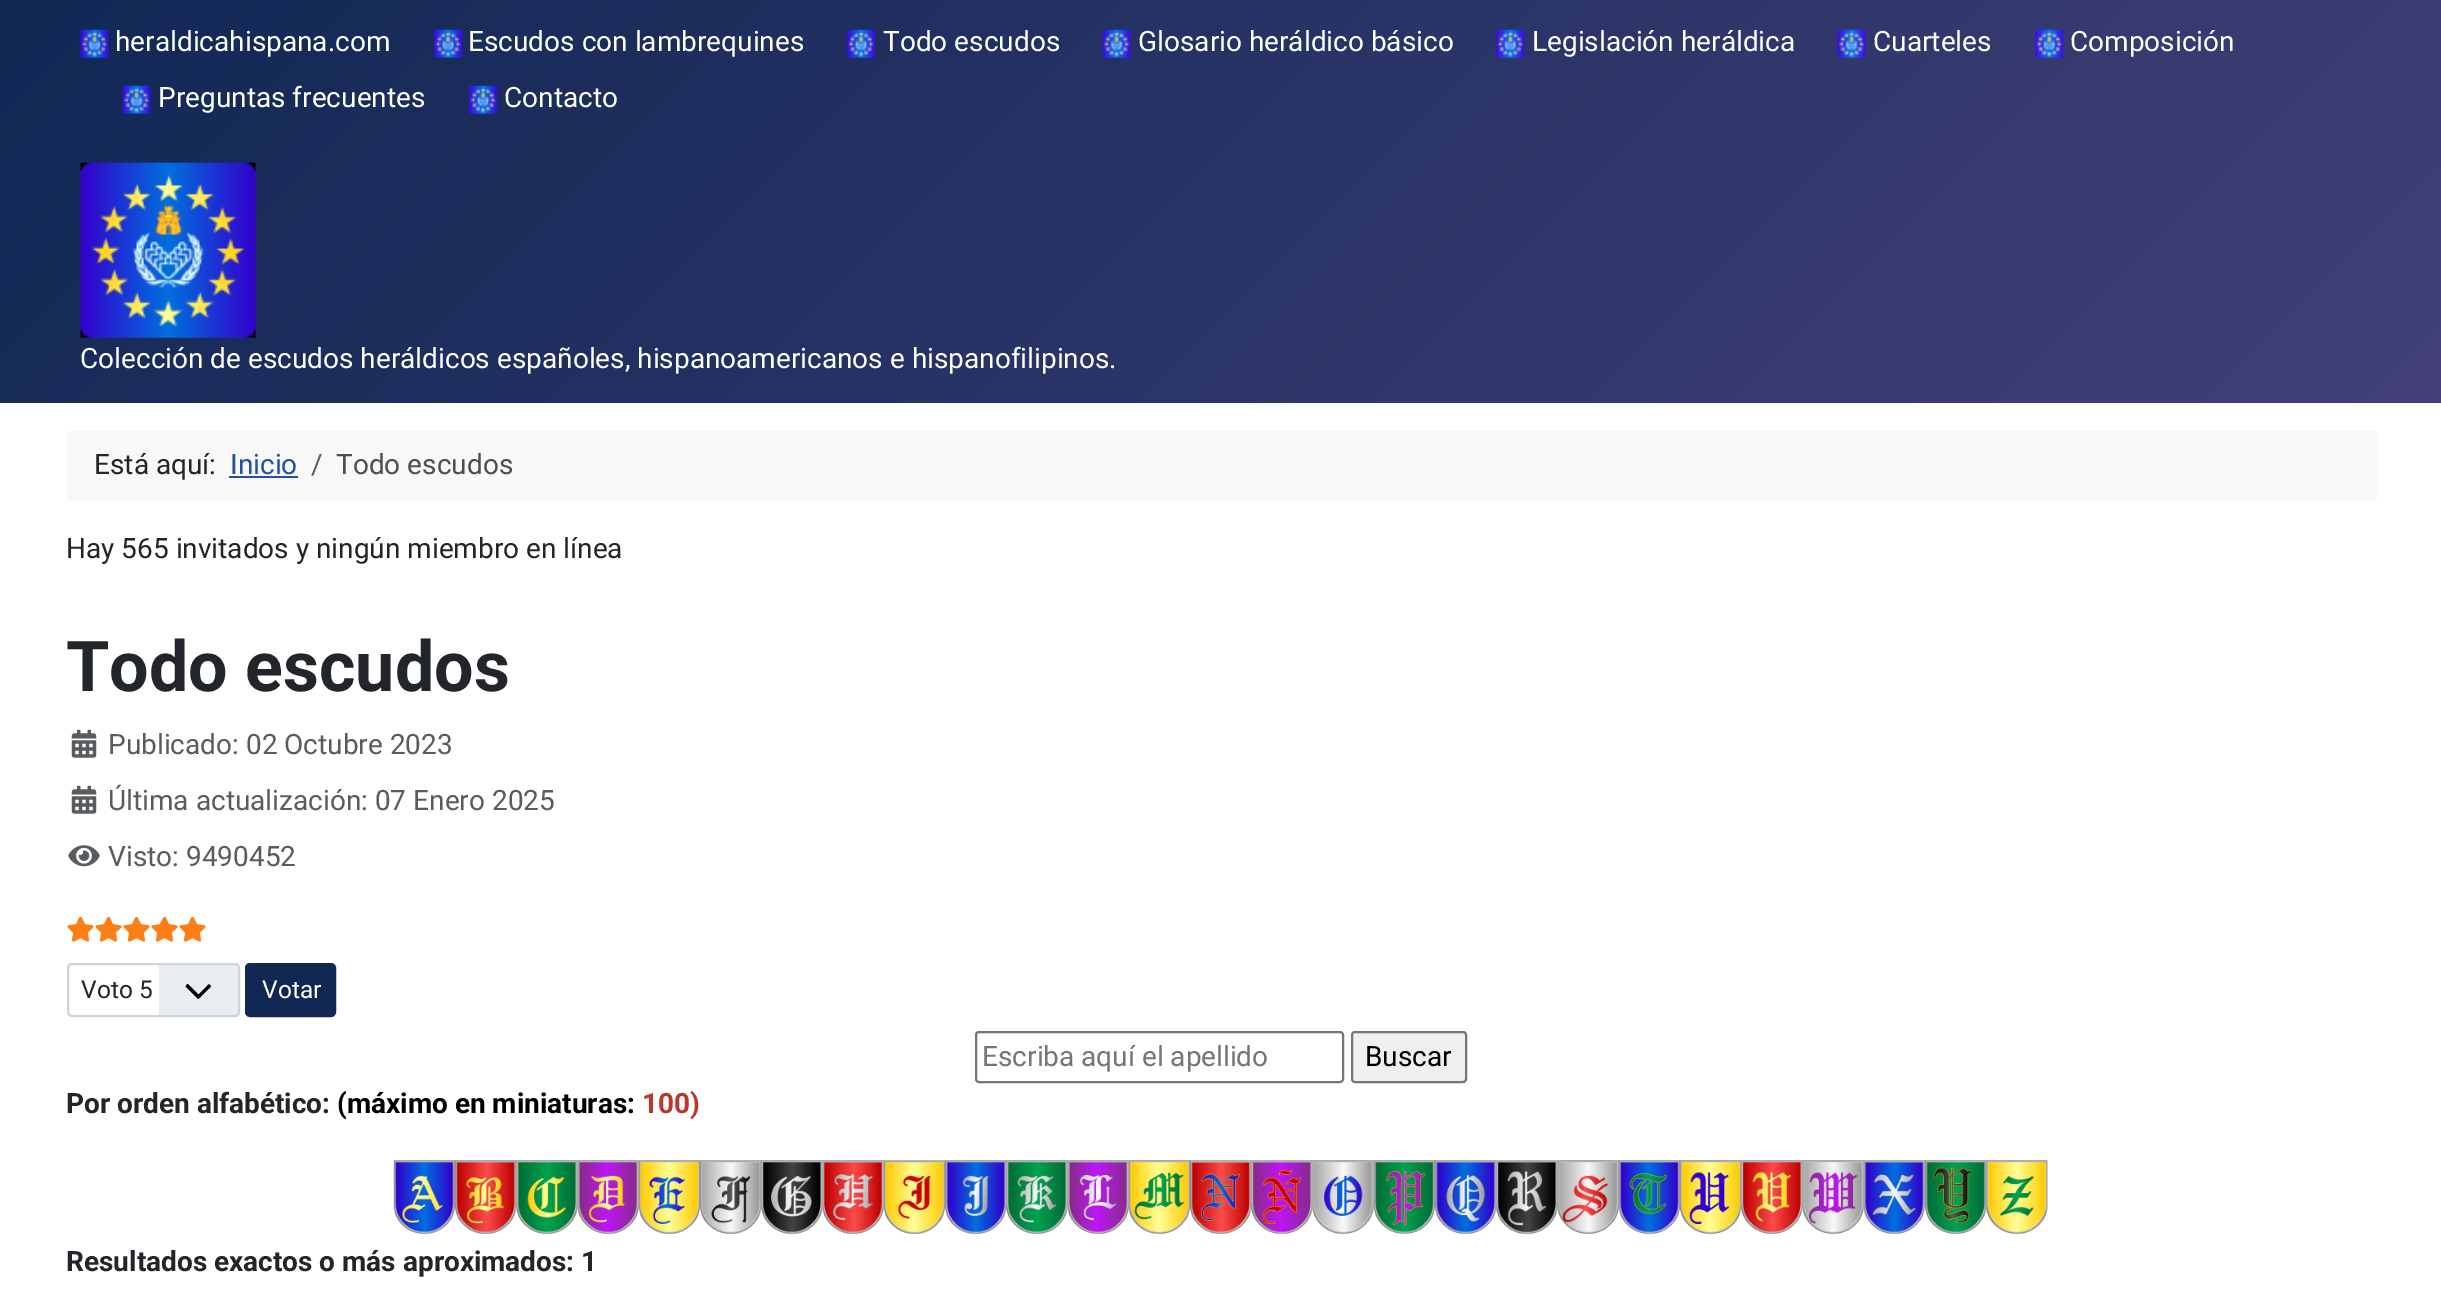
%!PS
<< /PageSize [2441 1291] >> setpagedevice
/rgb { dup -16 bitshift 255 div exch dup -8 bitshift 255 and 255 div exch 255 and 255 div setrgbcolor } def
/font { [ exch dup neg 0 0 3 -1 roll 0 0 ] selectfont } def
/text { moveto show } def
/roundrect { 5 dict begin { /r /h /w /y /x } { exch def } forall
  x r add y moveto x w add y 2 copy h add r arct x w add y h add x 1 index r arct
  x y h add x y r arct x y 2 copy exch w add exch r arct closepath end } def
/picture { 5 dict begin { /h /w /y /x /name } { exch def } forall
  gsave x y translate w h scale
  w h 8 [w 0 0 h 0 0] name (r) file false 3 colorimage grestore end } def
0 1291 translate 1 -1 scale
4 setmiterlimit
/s1 { /Roboto-Regular 28 font 16#FFFFFF rgb } def
/s2 { /Roboto-Regular 28 font 16#22262A rgb } def
/s3 { /Roboto-Regular 28 font 16#224FAA rgb } def
/s4 { /Roboto-Regular 28 font 16#595C5F rgb } def
/s5 { /Roboto-Regular 28 font 16#484F56 rgb } def
/s6 { /Roboto-Bold 70 font 16#22262A rgb } def
/s7 { /Roboto-Regular 24.5 font 16#22262A rgb } def
/s8 { /Roboto-Regular 24.5 font 16#FFFFFF rgb } def
/s9 { /Roboto-Regular 28 font 16#757575 rgb } def
/s10 { /Roboto-Regular 28 font 16#000000 rgb } def
/s11 { /Roboto-Bold 28 font 16#22262A rgb } def
/s12 { /Roboto-Bold 28 font 16#000000 rgb } def
/s13 { /Roboto-Bold 28 font 16#BA372A rgb } def
16#FFFFFF rgb
0 0 2441 1291 rectfill
gsave 0 0 moveto 2441 0 lineto 2441 403 lineto 0 403 lineto closepath clip newpath
<< /ShadingType 2 /ColorSpace /DeviceRGB /Coords [510 -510 1932 912] /Extend [true true] /Function << /FunctionType 2 /Domain [0 1] /C0 [0.067 0.157 0.333] /C1 [0.259 0.251 0.467] /N 1 >> >> shfill grestore
(pic1.raw) 80 29 29 29 picture
s1
(heraldicahispana.com) 115 51 text
(pic2.raw) 434 29 28 29 picture
(Escudos con lambrequines) 468 51 text
(pic3.raw) 847 29 28 29 picture
(Todo escudos) 883 51 text
(pic4.raw) 1102 29 29 29 picture
(Glosario heráldico básico) 1138 51 text
(pic5.raw) 1496 29 29 29 picture
(Legislación heráldica) 1532 51 text
(pic6.raw) 1837 29 29 29 picture
(Cuarteles) 1873 51 text
(pic7.raw) 2035 29 29 29 picture
(Composición) 2070 51 text
(pic8.raw) 122 85 29 29 picture
(Preguntas frecuentes) 158 107 text
(pic9.raw) 469 85 28 29 picture
(Contacto) 504 107 text
(pic10.raw) 80 162 176 176 picture
(Colección de escudos heráldicos españoles, hispanoamericanos e hispanofilipinos.) 80 368 text
16#F8F8F8 rgb
67 431 2310 70 rectfill
s2
(Está aquí:) 94 474 text
s3
(Inicio) 230 474 text
229 476 69 2 rectfill
s4
(/) 311 474 text
s5
(Todo escudos) 336 474 text
s2
(Hay 565 invitados y ningún miembro en línea) 66 558 text
s6
(Todo escudos) 66 691 text
(pic11.raw) 71 729 26 29 picture
s4
(Publicado: 02 Octubre 2023) 108 754 text
(pic11.raw) 71 785 26 29 picture
(Última actualización: 07 Enero 2025) 108 810 text
(pic12.raw) 68 845 32 22 picture
(Visto: 9490452) 108 866 text
(pic13.raw) 67 916 27 26 picture
(pic13.raw) 95 916 27 26 picture
(pic13.raw) 123 916 27 26 picture
(pic13.raw) 151 916 27 26 picture
(pic13.raw) 179 916 27 26 picture
16#EAEDF0 rgb
67 963 173 54 5 roundrect fill
16#000000 rgb
185.5 986.5 moveto 195.5 996.5 lineto 198.5 999.5 198 999.5 201 996.5 curveto 209 988.5 lineto 209.5 988 211 987 211 986 curveto 210 985 lineto 208.5 983.5 208.5 984.5 207 986 curveto 198.5 994.5 lineto 188 984 lineto 187 984 186 985.5 186 986 curveto 185.5 986.5 185.5 986.5 185.5 986.5 curveto closepath fill
16#FFFFFF rgb
72 963 moveto 159 963 lineto 159 1017 lineto 72 1017 lineto 69 1017 67 1015 67 1012 curveto 67 968 lineto 67 965 69 963 72 963 curveto closepath fill
16#CED4DA rgb
2 setlinewidth
68 964 171 52 4 roundrect stroke
s7
(Voto 5) 81 998 text
16#112855 rgb
246 964 89 52 4 roundrect gsave fill grestore
stroke
s8
(Votar) 262 998 text
16#767676 rgb
976 1032 367 50 3 roundrect stroke
s9
(Escriba aquí el apellido) 982 1066 text
16#EFEFEF rgb
1352 1032 114 50 3 roundrect gsave fill grestore
16#767676 rgb
stroke
s10
(Buscar) 1365 1066 text
s11
(Por orden alfabético:) 66 1113 text
s12
(\(máximo en miniaturas:) 337 1113 text
s13
(100\)) 642 1113 text
(pic14.raw) 393 1160 62 74 picture
(pic15.raw) 455 1160 62 74 picture
(pic16.raw) 516 1160 62 74 picture
(pic17.raw) 577 1160 62 74 picture
(pic18.raw) 638 1160 62 74 picture
(pic19.raw) 700 1160 62 74 picture
(pic20.raw) 761 1160 62 74 picture
(pic21.raw) 822 1160 62 74 picture
(pic22.raw) 883 1160 62 74 picture
(pic23.raw) 945 1160 62 74 picture
(pic24.raw) 1006 1160 62 74 picture
(pic25.raw) 1067 1160 62 74 picture
(pic26.raw) 1128 1160 62 74 picture
(pic27.raw) 1190 1160 62 74 picture
(pic28.raw) 1251 1160 62 74 picture
(pic29.raw) 1312 1160 62 74 picture
(pic30.raw) 1373 1160 62 74 picture
(pic31.raw) 1435 1160 62 74 picture
(pic32.raw) 1496 1160 62 74 picture
(pic33.raw) 1557 1160 62 74 picture
(pic34.raw) 1618 1160 62 74 picture
(pic35.raw) 1680 1160 62 74 picture
(pic36.raw) 1741 1160 62 74 picture
(pic37.raw) 1802 1160 62 74 picture
(pic38.raw) 1863 1160 62 74 picture
(pic39.raw) 1925 1160 62 74 picture
(pic40.raw) 1986 1160 62 74 picture
s11
(Resultados exactos o más aproximados: 1) 66 1271 text
showpage
